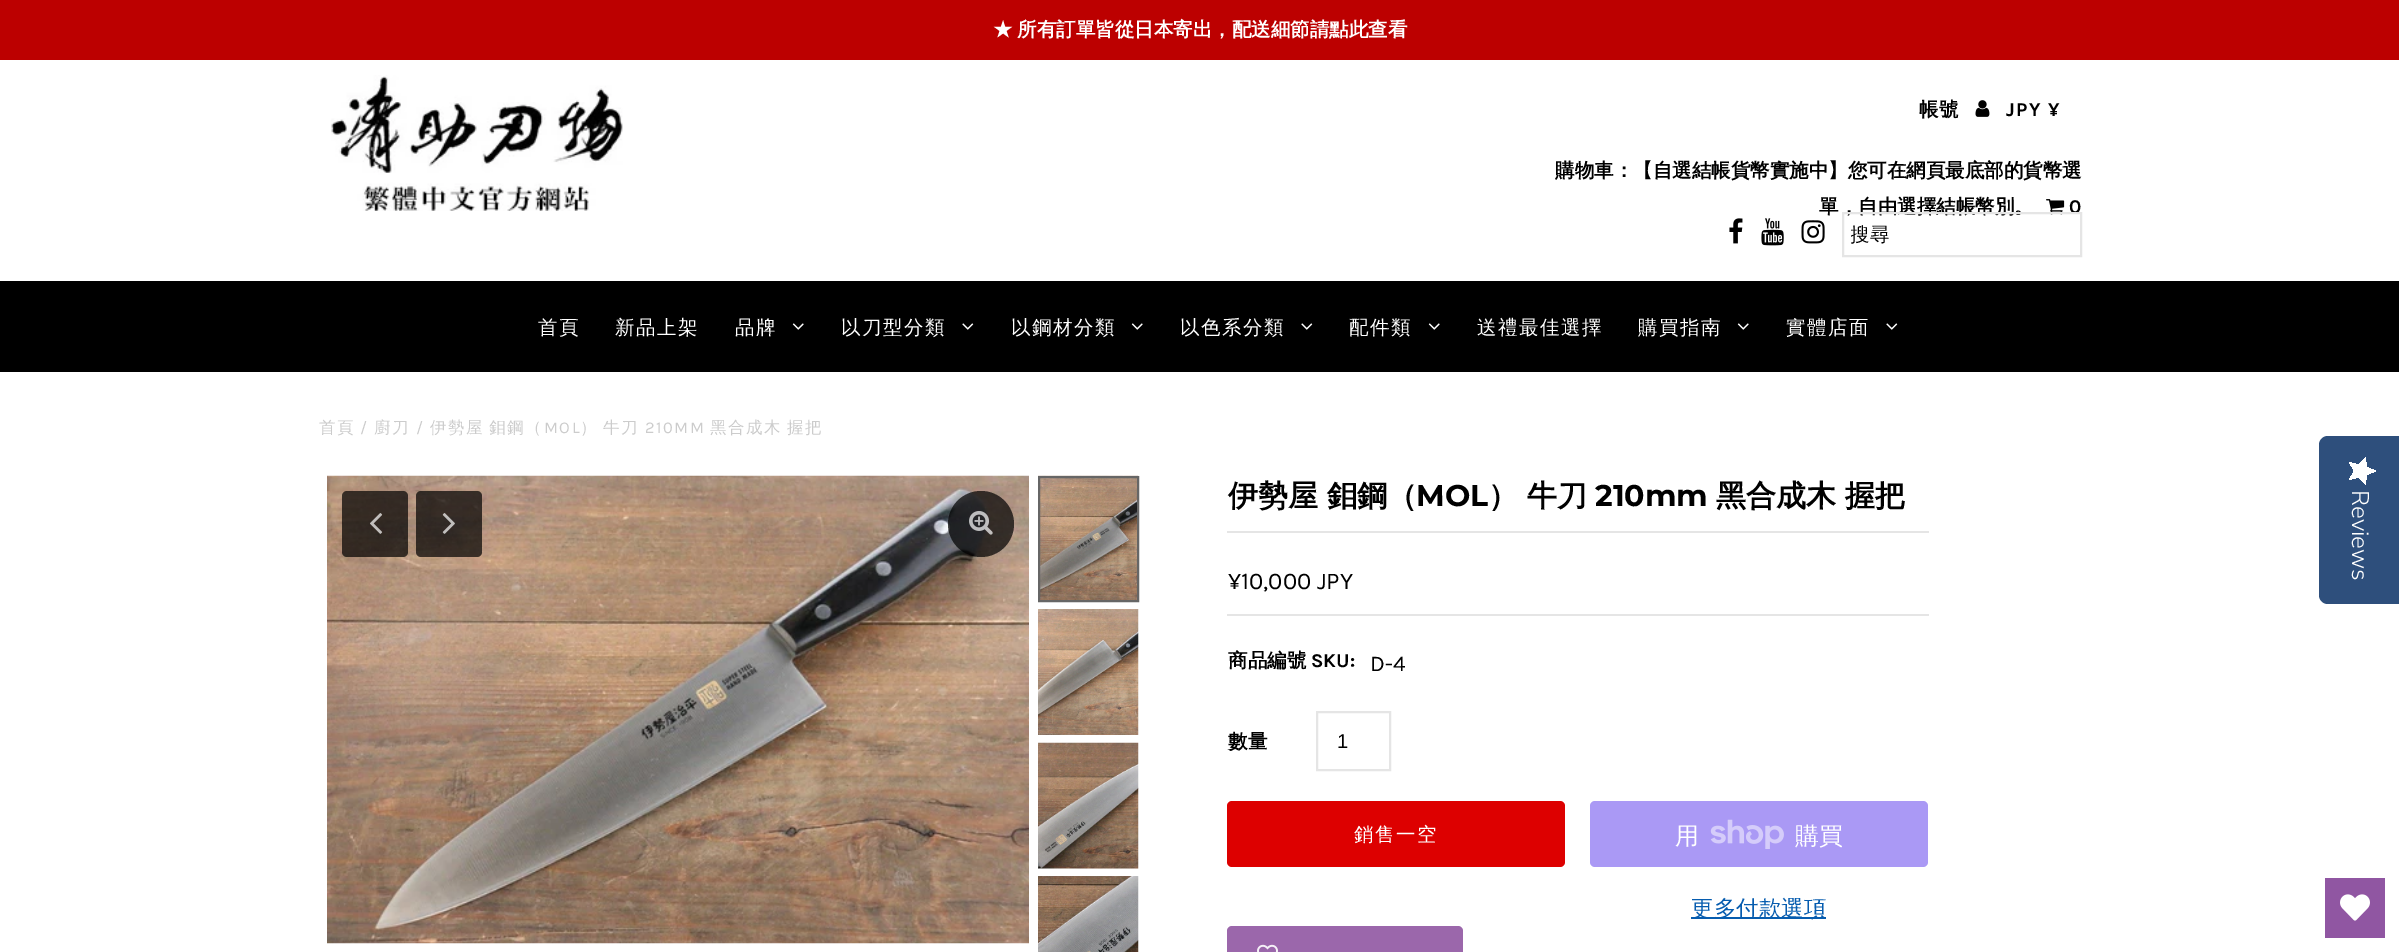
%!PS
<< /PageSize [2399 952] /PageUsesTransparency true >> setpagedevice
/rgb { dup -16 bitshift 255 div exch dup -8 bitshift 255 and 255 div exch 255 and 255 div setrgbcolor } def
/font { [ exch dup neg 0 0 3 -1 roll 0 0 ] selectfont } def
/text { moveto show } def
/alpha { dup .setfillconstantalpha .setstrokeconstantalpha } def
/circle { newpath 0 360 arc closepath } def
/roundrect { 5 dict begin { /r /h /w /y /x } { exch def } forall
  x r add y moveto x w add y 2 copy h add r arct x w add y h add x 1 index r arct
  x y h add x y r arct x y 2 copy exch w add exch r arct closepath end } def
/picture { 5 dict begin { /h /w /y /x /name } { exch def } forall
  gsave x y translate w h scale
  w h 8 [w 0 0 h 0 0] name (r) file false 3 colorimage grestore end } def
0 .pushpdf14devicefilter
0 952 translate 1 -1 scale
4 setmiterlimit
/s1 { /WenQuanYiZenHei-Bold 19.5 font 16#000000 rgb } def
/s2 { /Karla-Bold 19.5 font 16#000000 rgb } def
/s3 { /WenQuanYiZenHei-Medium 19.5 font 16#000000 rgb } def
/s4 { /WenQuanYiZenHei-Bold 30 font 16#000000 rgb } def
/s5 { /Montserrat-Bold 30 font 16#000000 rgb } def
/s6 { /Karla-Regular 24 font 16#000000 rgb } def
/s7 { /Karla-Regular 22.5 font 16#000000 rgb } def
/s8 { /LiberationSans-Regular 20 font 16#000000 rgb } def
/s9 { /WenQuanYiZenHei-Medium 24 font 16#FFFFFF rgb } def
/s10 { /WenQuanYiZenHei-Medium 22.5 font 16#065CAF rgb } def
16#FFFFFF rgb
0 0 2399 952 rectfill
16#BC0000 rgb
0 0 2399 60 rectfill
/WenQuanYiZenHei-Bold 19.5 font
16#FFFFFF rgb
993 36 moveto -1 0 32 (★ 所有訂單皆從日本寄出，配送細節請點此查看) widthshow
(pic1.raw) 331 75 292 136 picture
s1
(帳號) 1919 116 text
(pic2.raw) 1975 100 15 17 picture
/Karla-Bold 19.5 font
2006 116 moveto 1.5 0 (JPY ¥) ashow
s1
(購物車：【自選結帳貨幣實施中】您可在網頁最底部的貨幣選) 1555 177 text
(單，自由選擇結帳幣別。) 1819 213 text
(pic3.raw) 2046 199 19 16 picture
s2
(0) 2069 213 text
(pic4.raw) 1729 218 14 26 picture
(pic5.raw) 1761 218 23 28 picture
(pic6.raw) 1801 220 24 24 picture
16#E5E5E5 rgb
2 setlinewidth
1843 213 238 43 rectstroke
gsave
1851 221 230 27 rectclip
s3
(搜尋) 1850 241 text
grestore
16#000000 rgb
0 281 2399 91 rectfill
/WenQuanYiZenHei-Medium 19.5 font
16#FFFFFF rgb
538 334 moveto 1.5 0 (首頁) ashow
615 334 moveto 1.5 0 (新品上架) ashow
735 334 moveto 1.5 0 (品牌) ashow
(pic7.raw) 792 323 12 7 picture
841 334 moveto 1.5 0 (以刀型分類) ashow
(pic8.raw) 962 323 12 7 picture
1011 334 moveto 1.5 0 (以鋼材分類) ashow
(pic7.raw) 1131 323 12 7 picture
1180 334 moveto 1.5 0 (以色系分類) ashow
(pic8.raw) 1301 323 12 7 picture
1349 334 moveto 1.5 0 (配件類) ashow
(pic7.raw) 1428 323 12 7 picture
1477 334 moveto 1.5 0 (送禮最佳選擇) ashow
1638 334 moveto 1.5 0 (購買指南) ashow
(pic7.raw) 1737 323 12 7 picture
1786 334 moveto 1.5 0 (實體店面) ashow
(pic8.raw) 1886 323 12 7 picture
/WenQuanYiZenHei-Medium 16.5 font
16#CCCCCC rgb
319 433 moveto 1.5 0 (首頁) ashow
/Karla-Regular 16.5 font
360 433 moveto 1.5 0 (/) ashow
/WenQuanYiZenHei-Medium 16.5 font
374 433 moveto 1.5 0 (廚刀) ashow
/Karla-Regular 16.5 font
416 433 moveto 1.5 0 (/) ashow
/WenQuanYiZenHei-Medium 16.5 font
430 433 moveto -1 0 32 1.5 0 (伊勢屋 鉬鋼（) awidthshow
/Karla-Regular 16.5 font
544 433 moveto 1.5 0 (MOL) ashow
/WenQuanYiZenHei-Medium 16.5 font
580 433 moveto -1 0 32 1.5 0 (） 牛刀) awidthshow
/Karla-Regular 16.5 font
645 433 moveto 1.5 0 (210MM) ashow
/WenQuanYiZenHei-Medium 16.5 font
710 433 moveto -1 0 32 1.5 0 (黑合成木 握把) awidthshow
(pic9.raw) 327 475 702 469 picture
0.7 alpha
16#000000 rgb
981 524 33 circle fill
1 alpha
(pic10.raw) 969 511 24 24 picture
0.7 alpha
342 491 66 66 5 roundrect fill
1 alpha
(pic11.raw) 370 513 13 21 picture
0.7 alpha
416 491 66 66 5 roundrect fill
1 alpha
(pic12.raw) 442 513 13 21 picture
(pic13.raw) 1038 475 101 125 picture
16#666666 rgb
1039 477 99 124 rectstroke
(pic14.raw) 1038 609 101 126 picture
(pic15.raw) 1038 742 101 127 picture
(pic16.raw) 1038 876 101 76 picture
s4
(伊勢屋 鉬鋼（) 1228 506 text
s5
(MOL) 1416 506 text
s4
(） 牛刀) 1488 506 text
s5
(210mm) 1595 506 text
s4
(黑合成木 握把) 1716 506 text
16#E5E5E5 rgb
1227 531 702 2 rectfill
1227 614 702 2 rectfill
s6
(¥10,000 JPY) 1228 589 text
s1
(商品編號) 1228 667 text
s2
(SKU:) 1311 667 text
s7
(D-4) 1370 671 text
s1
(數量) 1228 748 text
16#E5E5E5 rgb
1317 712 73 58 rectstroke
s8
(1) 1337 748 text
16#DD0000 rgb
1227 801 338 66 5 roundrect fill
/WenQuanYiZenHei-Medium 19.5 font
16#FFFFFF rgb
1354 841 moveto 1.5 0 (銷售一空) ashow
16#AA99F5 rgb
1590 801 338 66 5 roundrect fill
s9
(用) 1675 844 text
(pic17.raw) 1710 819 74 30 picture
(購買) 1795 844 text
16#065CAF rgb
1691 917 135 2 rectfill
s10
(更多付款選項) 1691 916 text
16#9B67AB rgb
1227 926 236 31 5 roundrect fill
(pic18.raw) 1257 944 21 8 picture
16#2E4F7C rgb
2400 436 moveto 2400 604 lineto 2328 604 lineto 2323 604 2319 600 2319 595 curveto 2319 445 lineto 2319 440 2323 436 2328 436 curveto closepath fill
gsave 2354.5 471 moveto 2349.5 479.5 lineto 2359 477 lineto 2365.5 484.5 lineto 2366.5 475 lineto 2375.5 471 lineto 2366.5 467 lineto 2365.5 457.5 lineto 2359 465 lineto 2349.5 462.5 lineto closepath clip newpath
<< /ShadingType 2 /ColorSpace /DeviceRGB /Coords [2375 458 2375 485] /Extend [true true] /Function << /FunctionType 2 /Domain [0 1] /C0 [1 1 1] /C1 [1 1 1] /N 1 >> >> shfill grestore
/NunitoSans-Light 24 font
16#FFFFFF rgb
gsave 2352 490 translate 90 rotate 0 0 moveto (Reviews) show grestore
16#9056A2 rgb
2325 878 60 60 rectfill
(pic19.raw) 2340 894 30 27 picture
.poppdf14devicefilter showpage
